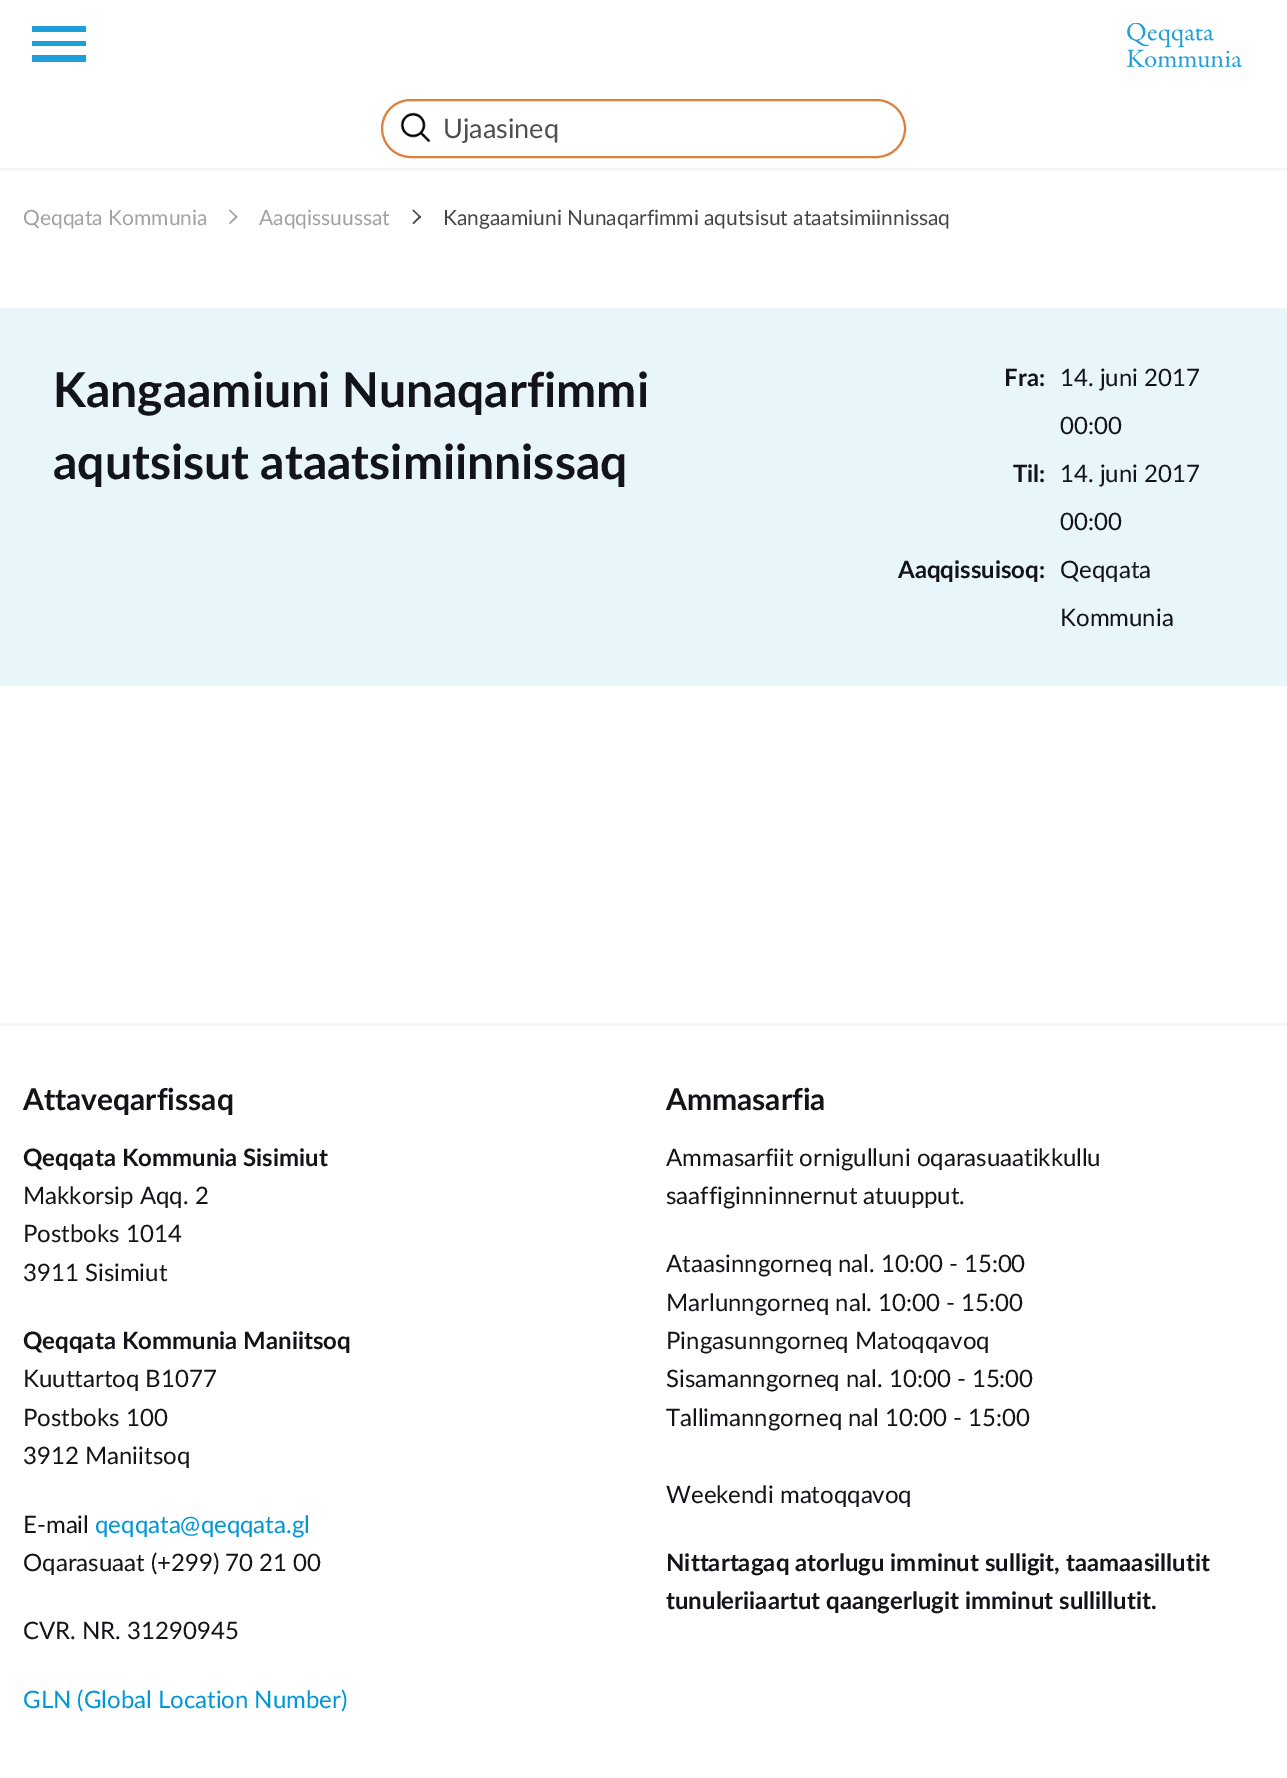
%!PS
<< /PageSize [1287 1778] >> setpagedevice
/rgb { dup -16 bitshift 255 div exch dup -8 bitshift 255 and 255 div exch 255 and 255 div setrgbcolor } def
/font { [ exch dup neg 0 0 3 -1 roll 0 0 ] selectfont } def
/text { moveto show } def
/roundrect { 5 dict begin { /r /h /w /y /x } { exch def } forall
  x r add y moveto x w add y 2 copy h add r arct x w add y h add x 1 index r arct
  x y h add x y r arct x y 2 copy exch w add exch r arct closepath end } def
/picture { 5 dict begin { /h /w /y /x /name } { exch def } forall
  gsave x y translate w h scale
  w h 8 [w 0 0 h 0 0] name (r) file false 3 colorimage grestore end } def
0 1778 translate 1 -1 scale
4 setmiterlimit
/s1 { /Lato-Regular 27 font 16#4E4E53 rgb } def
/s2 { /Lato-Regular 21 font 16#A2A2A2 rgb } def
/s3 { /Lato-Regular 21 font 16#454545 rgb } def
/s4 { /Lato-Bold 48 font 16#13131A rgb } def
/s5 { /Lato-Bold 24 font 16#13131A rgb } def
/s6 { /Lato-Regular 24 font 16#13131A rgb } def
/s7 { /Lato-Bold 30 font 16#13131A rgb } def
/s8 { /Lato-Regular 24 font 16#0096D7 rgb } def
16#FFFFFF rgb
0 0 1287 1778 rectfill
16#1D9FDA rgb
32 62 moveto 32 55 lineto 86 55 lineto 86 62 lineto closepath 32 46 moveto 32 41 lineto 86 41 lineto 86 46 lineto closepath 32 26 moveto 86 26 lineto 86 32 lineto 32 32 lineto closepath fill
(pic1.raw) 1127 23 115 45 picture
16#F4F5F7 rgb
0 168 1287 3 rectfill
(pic2.raw) 400 112 31 31 picture
16#DF7F3E rgb
2 setlinewidth
382 100 523 57 28.5 roundrect stroke
s1
(Ujaasineq) 443 138 text
s2
(Qeqqata Kommunia) 23 225 text
230 209.5 moveto 237.5 217 lineto 236.5 218 lineto 229 210.5 lineto closepath fill
236.5 215.5 moveto 237.5 217 lineto 230 224 lineto 229 223 lineto closepath fill
(Aaqqissuussat) 259 225 text
16#454545 rgb
413.5 209.5 moveto 421 217 lineto 420 218 lineto 412.5 210.5 lineto closepath fill
420 215.5 moveto 421 217 lineto 413.5 224 lineto 412.5 223 lineto closepath fill
(Kangaamiuni Nunaqarfimmi aqutsisut ataatsimiinnissaq) 443 225 text
16#E8F5FB rgb
0 308 1287 378 rectfill
s4
(Kangaamiuni Nunaqarfimmi) 53 407 text
(aqutsisut ataatsimiinnissaq) 53 479 text
s5
(Fra:) 1004 386 text
s6
(14. juni 2017) 1060 386 text
(00:00) 1060 434 text
s5
(Til:) 1013 482 text
s6
(14. juni 2017) 1060 482 text
(00:00) 1060 530 text
s5
(Aaqqissuisoq:) 898 578 text
s6
(Qeqqata) 1060 578 text
(Kommunia) 1060 626 text
16#F4F5F7 rgb
0 1023 1287 3 rectfill
s7
(Attaveqarfissaq) 23 1110 text
s5
(Qeqqata Kommunia Sisimiut) 23 1166 text
s6
(Makkorsip Aqq. 2) 23 1204 text
(Postboks 1014) 23 1242 text
(3911 Sisimiut) 23 1281 text
s5
(Qeqqata Kommunia Maniitsoq) 23 1349 text
s6
(Kuuttartoq B1077) 23 1387 text
(Postboks 100) 23 1426 text
(3912 Maniitsoq) 23 1464 text
(E-mail) 23 1533 text
s8
(qeqqata@qeqqata.gl) 95 1533 text
s6
(Oqarasuaat \(+299\) 70 21 00) 23 1571 text
(CVR. NR. 31290945) 23 1639 text
s8
(GLN \(Global Location Number\)) 23 1708 text
s7
(Ammasarfia) 666 1110 text
s6
(Ammasarfiit ornigulluni oqarasuaatikkullu) 666 1166 text
(saaffiginninnernut atuupput.) 666 1204 text
(Ataasinngorneq nal. 10:00 - 15:00) 666 1272 text
(Marlunngorneq nal. 10:00 - 15:00) 666 1311 text
(Pingasunngorneq Matoqqavoq) 666 1349 text
(Sisamanngorneq nal. 10:00 - 15:00) 666 1387 text
(Tallimanngorneq nal 10:00 - 15:00) 666 1426 text
(Weekendi matoqqavoq) 666 1503 text
s5
(Nittartagaq atorlugu imminut sulligit, taamaasillutit) 666 1571 text
(tunuleriiaartut qaangerlugit imminut sullillutit.) 666 1609 text
showpage
